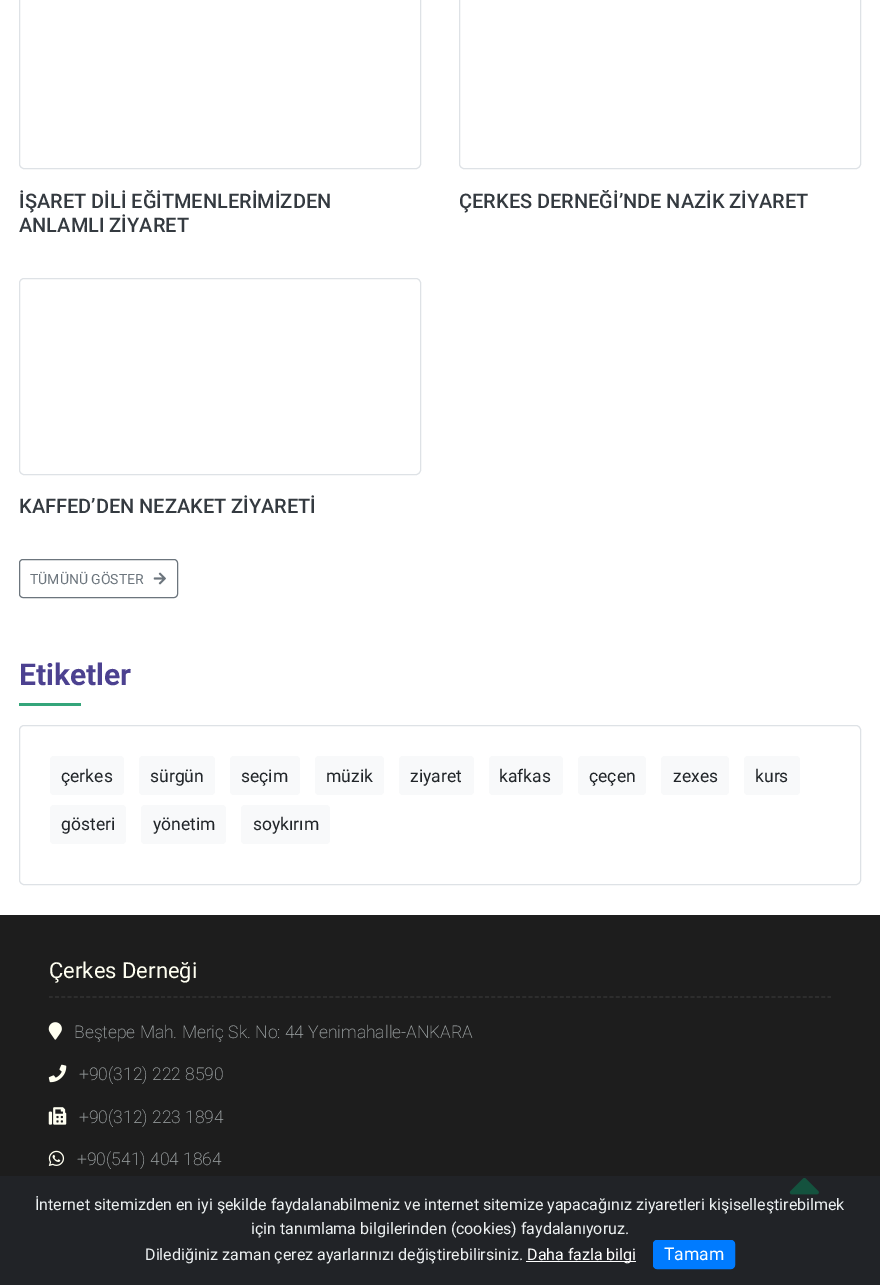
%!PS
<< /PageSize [880 1285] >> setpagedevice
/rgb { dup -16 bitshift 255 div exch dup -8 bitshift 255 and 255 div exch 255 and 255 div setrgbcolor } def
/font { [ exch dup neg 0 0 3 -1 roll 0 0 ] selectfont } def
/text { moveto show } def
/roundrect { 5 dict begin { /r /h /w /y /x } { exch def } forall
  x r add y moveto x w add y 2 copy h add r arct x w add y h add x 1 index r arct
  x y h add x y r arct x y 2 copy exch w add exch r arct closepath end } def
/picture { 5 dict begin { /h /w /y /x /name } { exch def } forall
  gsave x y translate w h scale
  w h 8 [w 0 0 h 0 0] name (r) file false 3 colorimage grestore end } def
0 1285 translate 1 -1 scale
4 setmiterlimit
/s1 { /Roboto-Medium 20 font 16#343A40 rgb } def
/s2 { /Roboto-Regular 14 font 16#6C757D rgb } def
/s3 { /Roboto-Bold 30 font 16#4C4190 rgb } def
/s4 { /Roboto-Regular 17.5 font 16#212529 rgb } def
/s5 { /Roboto-Regular 22 font 16#FFFFF1 rgb } def
/s6 { /Roboto-ExtraLight 17.5 font 16#A5ABAC rgb } def
/s7 { /Roboto-Regular 16 font 16#ECF0F1 rgb } def
/s8 { /Roboto-Regular 16 font 16#FFFFFF rgb } def
/s9 { /Roboto-Regular 17.5 font 16#FFFFFF rgb } def
16#1D1D1D rgb
0 0 880 1285 rectfill
16#FFFFFF rgb
0 0 880 915 rectfill
16#DEE2E6 rgb
19.5 -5.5 401 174 4.5 roundrect stroke
s1
(İŞARET DİLİ EĞİTMENLERİMİZDEN) 19 208 text
(ANLAMLI ZİYARET) 19 232 text
16#DEE2E6 rgb
459.5 -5.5 401 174 4.5 roundrect stroke
s1
(ÇERKES DERNEĞİ’NDE NAZİK ZİYARET) 459 208 text
16#DEE2E6 rgb
19.5 278.5 401 196 4.5 roundrect stroke
s1
(KAFFED’DEN NEZAKET ZİYARETİ) 19 513 text
16#6C757D rgb
19.5 559.5 158 38 3.5 roundrect stroke
s2
(TÜMÜNÜ GÖSTER) 30 584 text
(pic1.raw) 153 572 13 13 picture
s3
(Etiketler) 19 685 text
16#34A57A rgb
19 703 62 3 rectfill
16#DEE2E6 rgb
19.5 725.5 841 159 4.5 roundrect stroke
16#F8F9FA rgb
50 756 74 39 4 roundrect fill
s4
(çerkes) 61 782 text
16#F8F9FA rgb
139 756 76 39 4 roundrect fill
s4
(sürgün) 150 782 text
16#F8F9FA rgb
230 756 70 39 4 roundrect fill
s4
(seçim) 241 782 text
16#F8F9FA rgb
315 756 69 39 4 roundrect fill
s4
(müzik) 326 782 text
16#F8F9FA rgb
399 756 75 39 4 roundrect fill
s4
(ziyaret) 410 782 text
16#F8F9FA rgb
489 756 74 39 4 roundrect fill
s4
(kafkas) 499 782 text
16#F8F9FA rgb
578 756 68 39 4 roundrect fill
s4
(çeçen) 589 782 text
16#F8F9FA rgb
661 756 68 39 4 roundrect fill
s4
(zexes) 673 782 text
16#F8F9FA rgb
744 756 56 39 4 roundrect fill
s4
(kurs) 755 782 text
16#F8F9FA rgb
50 805 76 39 4 roundrect fill
s4
(gösteri) 61 830 text
16#F8F9FA rgb
141 805 85 39 4 roundrect fill
s4
(yönetim) 153 830 text
16#F8F9FA rgb
241 805 89 39 4 roundrect fill
s4
(soykırım) 253 830 text
16#343434 rgb
1.2 setlinewidth
[3.75 2.48] 0 setdash
49 997 moveto 831 997 lineto stroke
s5
(Çerkes Derneği) 49 978 text
(pic2.raw) 48 1022 14 18 picture
s6
(Beştepe Mah. Meriç Sk. No: 44 Yenimahalle-ANKARA) 74 1038 text
(pic3.raw) 48 1064 19 19 picture
(+90\(312\) 222 8590) 79 1080 text
(pic4.raw) 48 1107 19 18 picture
(+90\(312\) 223 1894) 79 1123 text
(pic5.raw) 48 1150 17 16 picture
(+90\(541\) 404 1864) 77 1165 text
16#212327 rgb
0 1176 880 109 rectfill
(pic6.raw) 789 1178 30 17 picture
s7
(İnternet sitemizden en iyi şekilde faydalanabilmeniz ve internet sitemize yapacağınız ziyaretleri kişiselleştirebilmek) 35 1210 text
(için tanımlama bilgilerinden \(cookies\) faydalanıyoruz.) 251 1234 text
(Dilediğiniz zaman çerez ayarlarınızı değiştirebilirsiniz.) 145 1260 text
16#FFFFFF rgb
526 1261 110 1 rectfill
(Daha fazla bilgi) 527 1260 text
16#007BFF rgb
653.5 1240.5 81 28 3.5 roundrect gsave fill grestore
1 setlinewidth
[] 0 setdash
stroke
s9
(Tamam) 664 1260 text
showpage
